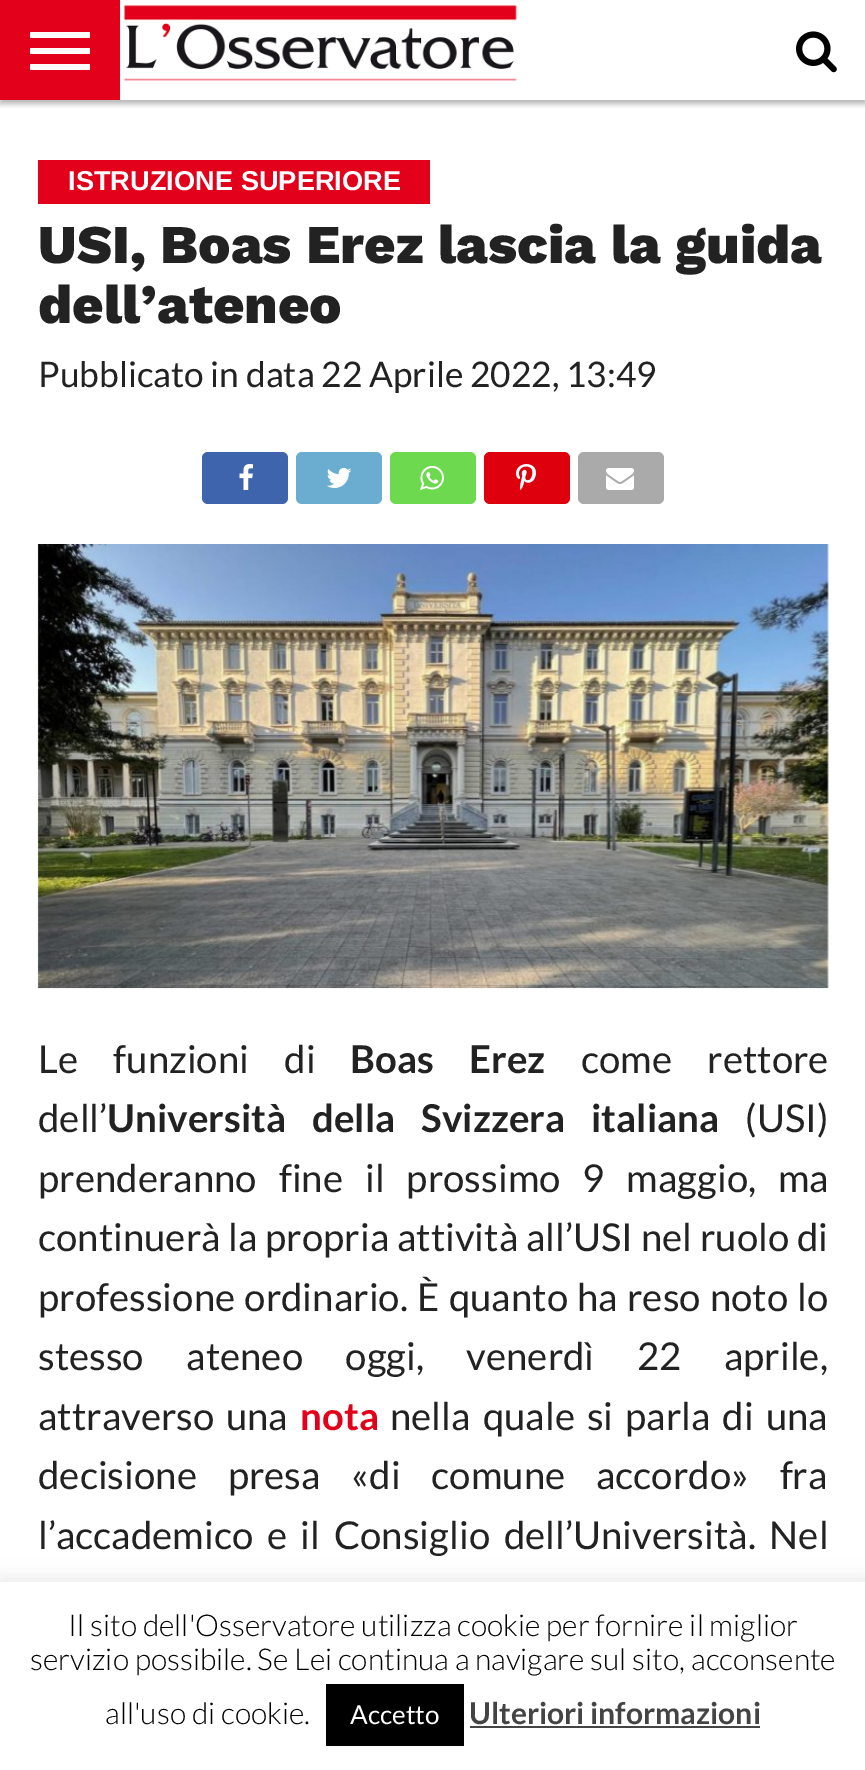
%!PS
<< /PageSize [865 1770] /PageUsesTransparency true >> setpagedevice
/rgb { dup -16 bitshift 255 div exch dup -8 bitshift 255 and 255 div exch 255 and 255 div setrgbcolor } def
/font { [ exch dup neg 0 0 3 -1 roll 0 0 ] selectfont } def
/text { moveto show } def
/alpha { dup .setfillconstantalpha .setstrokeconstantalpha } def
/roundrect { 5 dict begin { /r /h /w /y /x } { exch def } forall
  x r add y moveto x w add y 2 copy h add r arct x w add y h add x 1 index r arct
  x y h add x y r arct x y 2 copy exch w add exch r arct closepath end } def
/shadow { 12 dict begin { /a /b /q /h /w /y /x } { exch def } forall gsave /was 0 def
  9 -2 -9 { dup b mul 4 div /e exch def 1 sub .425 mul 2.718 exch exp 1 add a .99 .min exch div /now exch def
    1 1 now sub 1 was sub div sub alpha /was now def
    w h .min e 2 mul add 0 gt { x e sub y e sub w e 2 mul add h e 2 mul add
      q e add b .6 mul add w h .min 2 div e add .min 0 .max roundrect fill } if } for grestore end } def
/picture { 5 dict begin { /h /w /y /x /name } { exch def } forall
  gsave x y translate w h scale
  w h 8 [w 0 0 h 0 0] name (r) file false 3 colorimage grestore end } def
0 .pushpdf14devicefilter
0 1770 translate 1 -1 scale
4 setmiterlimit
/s1 { /LiberationSans-Bold 27.25 font 16#FFFFFF rgb } def
/s2 { /WorkSans-ExtraBold 54.4 font 16#222222 rgb } def
/s3 { /Lato-Regular 35.25 font 16#222222 rgb } def
/s4 { /Lato-Regular 38.4 font 16#222222 rgb } def
/s5 { /Lato-Bold 38.4 font 16#E3001B rgb } def
/s6 { /Lato-Light 30 font 16#000000 rgb } def
/s7 { /Lato-Regular 26 font 16#FFFFFF rgb } def
/s8 { /Lato-Bold 30 font 16#444444 rgb } def
16#FFFFFF rgb
0 0 865 1770 rectfill
gsave
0 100 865 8 rectclip
16#000000 rgb
0 4 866 100 0 3 0.3 shadow
grestore
16#E3001B rgb
0 0 120 100 rectfill
16#FFFFFF rgb
30 32 60 6 rectfill
30 48 60 6 rectfill
30 64 60 6 rectfill
(pic1.raw) 123 5 394 76 picture
(pic2.raw) 796 31 41 42 picture
16#E3001B rgb
38 160 392 44 rectfill
s1
(ISTRUZIONE SUPERIORE) 68 190 text
s2
(USI, Boas Erez lascia la guida) 38 263 text
(dell’ateneo) 38 323 text
s3
(Pubblicato in data 22 Aprile 2022, 13:49) 38 387 text
16#3E64AD rgb
202 452 86 52 6 roundrect fill
(pic3.raw) 239 464 14 26 picture
16#6AADD1 rgb
296 452 86 52 6 roundrect fill
(pic4.raw) 326 468 26 20 picture
16#6CD94E rgb
390 452 86 52 6 roundrect fill
(pic5.raw) 420 465 24 25 picture
16#DE010D rgb
484 452 86 52 6 roundrect fill
(pic6.raw) 516 464 20 26 picture
16#AAAAAA rgb
578 452 86 52 6 roundrect fill
(pic7.raw) 606 468 28 22 picture
(pic8.raw) 37 544 792 445 picture
/Lato-Regular 38.4 font
16#222222 rgb
38 1073 moveto 28 0 32 (Le funzioni di) widthshow
/Lato-Bold 38.4 font
350 1073 moveto 28 0 32 (Boas Erez) widthshow
/Lato-Regular 38.4 font
581 1073 moveto 28 0 32 (come rettore) widthshow
(dell’) 38 1132 text
/Lato-Bold 38.4 font
107 1132 moveto 18.5 0 32 (Università della Svizzera italiana) widthshow
s4
(\(USI\)) 745 1132 text
38 1192 moveto 14.5 0 32 (prenderanno fine il prossimo 9 maggio, ma) widthshow
38 1251 moveto 0.25 0 32 (continuerà la propria attività all’USI nel ruolo di) widthshow
38 1311 moveto 1.75 0 32 (professione ordinario. È quanto ha reso noto lo) widthshow
38 1370 moveto 35 0 32 (stesso ateneo oggi, venerdì 22 aprile,) widthshow
38 1430 moveto 4 0 32 (attraverso una) widthshow
s5
(nota) 300 1430 text
/Lato-Regular 38.4 font
16#222222 rgb
390 1430 moveto 4.5 0 32 (nella quale si parla di una) widthshow
38 1489 moveto 23.5 0 32 (decisione presa «di comune accordo» fra) widthshow
38 1549 moveto 6.25 0 32 (l’accademico e il Consiglio dell’Università. Nel) widthshow
16#ACABAB rgb
0 1580 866 188 0 10 0.3 shadow
16#FFFFFF rgb
0 1582 865 188 rectfill
s6
(Il sito dell'Osservatore utilizza cookie per fornire il miglior) 68 1636 text
(servizio possibile. Se Lei continua a navigare sul sito, acconsente) 30 1670 text
(all'uso di cookie.) 105 1724 text
326 1684 138 62 rectfill
s7
(Accetto) 350 1724 text
s8
(Ulteriori informazioni) 469 1724 text
470 1726 290 2 rectfill
.poppdf14devicefilter showpage
